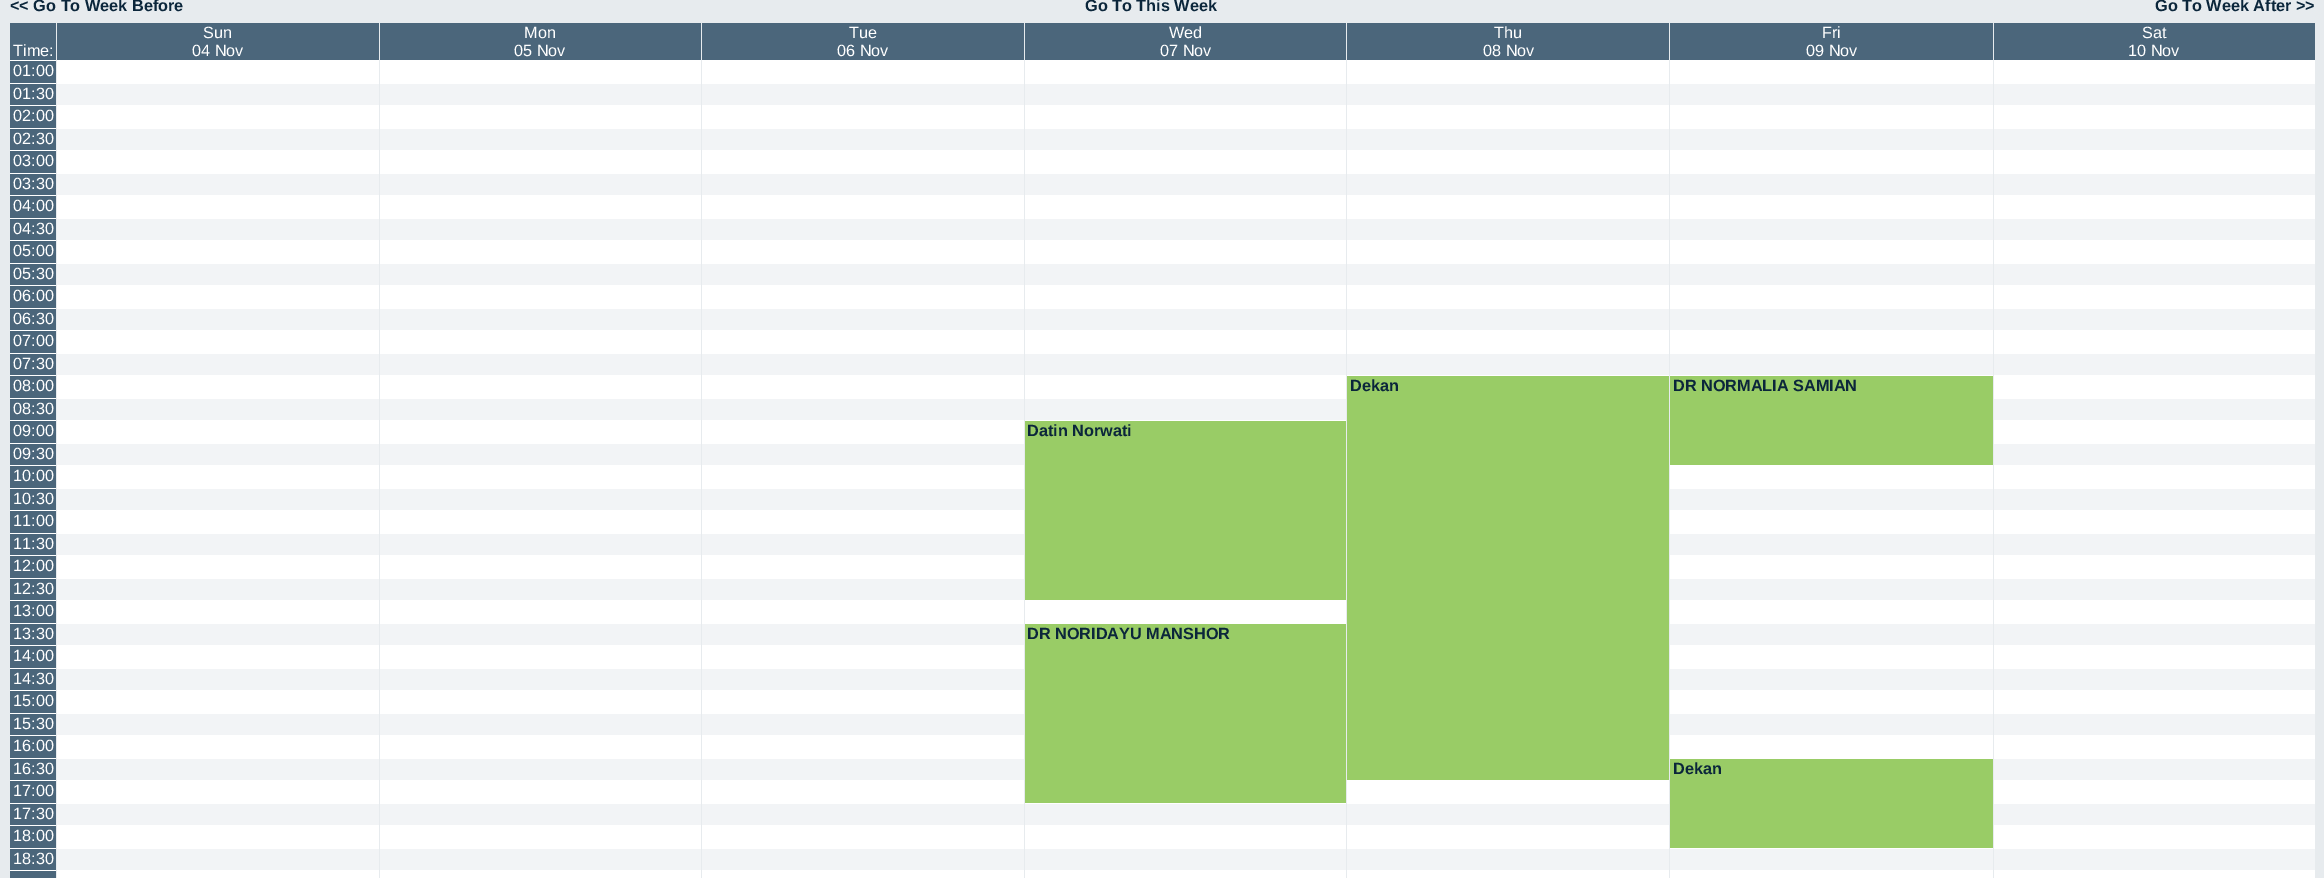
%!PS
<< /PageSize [2324 878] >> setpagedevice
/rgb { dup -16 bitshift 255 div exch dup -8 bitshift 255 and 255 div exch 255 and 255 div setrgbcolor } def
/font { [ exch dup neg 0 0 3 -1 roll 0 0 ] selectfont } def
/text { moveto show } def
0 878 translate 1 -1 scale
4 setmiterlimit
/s1 { /LiberationSans-Bold 16.25 font 16#0B263B rgb } def
/s2 { /LiberationSans-Regular 16.25 font 16#FFFFFF rgb } def
16#E7EBEE rgb
0 0 2324 878 rectfill
s1
(<< Go To Week Before) 10 11 text
(Go To This Week) 1085 11 text
(Go To Week After >>) 2155 11 text
16#4B667B rgb
10 23 46 37 rectfill
s2
(Time:) 13 56 text
16#4B667B rgb
57 23 322 37 rectfill
s2
(Sun) 203 38 text
(04 Nov) 192 56 text
16#4B667B rgb
380 23 321 37 rectfill
s2
(Mon) 524 38 text
(05 Nov) 514 56 text
16#4B667B rgb
702 23 322 37 rectfill
s2
(Tue) 849 38 text
(06 Nov) 837 56 text
16#4B667B rgb
1025 23 321 37 rectfill
s2
(Wed) 1169 38 text
(07 Nov) 1160 56 text
16#4B667B rgb
1347 23 322 37 rectfill
s2
(Thu) 1494 38 text
(08 Nov) 1483 56 text
16#4B667B rgb
1670 23 323 37 rectfill
s2
(Fri) 1822 38 text
(09 Nov) 1806 56 text
16#4B667B rgb
1994 23 321 37 rectfill
s2
(Sat) 2142 38 text
(10 Nov) 2128 56 text
16#4B667B rgb
10 61 46 22 rectfill
16#FFFFFF rgb
10 60 46 1 rectfill
(01:00) 13 76 text
57 60 322 23 rectfill
380 60 321 23 rectfill
702 60 322 23 rectfill
1025 60 321 23 rectfill
1347 60 322 23 rectfill
1670 60 323 23 rectfill
1994 60 321 23 rectfill
16#4B667B rgb
10 84 46 21 rectfill
16#FFFFFF rgb
10 83 2305 1 rectfill
(01:30) 13 99 text
16#F2F4F6 rgb
57 84 322 21 rectfill
16#E7EBEE rgb
56 83 1 1 rectfill
16#F2F4F6 rgb
380 84 321 21 rectfill
16#E7EBEE rgb
379 83 1 1 rectfill
16#F2F4F6 rgb
702 84 322 21 rectfill
16#E7EBEE rgb
701 83 1 1 rectfill
16#F2F4F6 rgb
1025 84 321 21 rectfill
16#E7EBEE rgb
1024 83 1 1 rectfill
16#F2F4F6 rgb
1347 84 322 21 rectfill
16#E7EBEE rgb
1346 83 1 1 rectfill
16#F2F4F6 rgb
1670 84 323 21 rectfill
16#E7EBEE rgb
1669 83 1 1 rectfill
16#F2F4F6 rgb
1994 84 321 21 rectfill
16#E7EBEE rgb
1993 83 1 1 rectfill
16#4B667B rgb
10 106 46 22 rectfill
16#FFFFFF rgb
10 105 46 1 rectfill
(02:00) 13 121 text
57 105 322 23 rectfill
380 105 321 23 rectfill
702 105 322 23 rectfill
1025 105 321 23 rectfill
1347 105 322 23 rectfill
1670 105 323 23 rectfill
1994 105 321 23 rectfill
16#4B667B rgb
10 129 46 21 rectfill
16#FFFFFF rgb
10 128 2305 1 rectfill
(02:30) 13 144 text
16#F2F4F6 rgb
57 129 322 21 rectfill
16#E7EBEE rgb
56 128 1 1 rectfill
16#F2F4F6 rgb
380 129 321 21 rectfill
16#E7EBEE rgb
379 128 1 1 rectfill
16#F2F4F6 rgb
702 129 322 21 rectfill
16#E7EBEE rgb
701 128 1 1 rectfill
16#F2F4F6 rgb
1025 129 321 21 rectfill
16#E7EBEE rgb
1024 128 1 1 rectfill
16#F2F4F6 rgb
1347 129 322 21 rectfill
16#E7EBEE rgb
1346 128 1 1 rectfill
16#F2F4F6 rgb
1670 129 323 21 rectfill
16#E7EBEE rgb
1669 128 1 1 rectfill
16#F2F4F6 rgb
1994 129 321 21 rectfill
16#E7EBEE rgb
1993 128 1 1 rectfill
16#4B667B rgb
10 151 46 22 rectfill
16#FFFFFF rgb
10 150 46 1 rectfill
(03:00) 13 166 text
57 150 322 23 rectfill
380 150 321 23 rectfill
702 150 322 23 rectfill
1025 150 321 23 rectfill
1347 150 322 23 rectfill
1670 150 323 23 rectfill
1994 150 321 23 rectfill
16#4B667B rgb
10 174 46 21 rectfill
16#FFFFFF rgb
10 173 2305 1 rectfill
(03:30) 13 189 text
16#F2F4F6 rgb
57 174 322 21 rectfill
16#E7EBEE rgb
56 173 1 1 rectfill
16#F2F4F6 rgb
380 174 321 21 rectfill
16#E7EBEE rgb
379 173 1 1 rectfill
16#F2F4F6 rgb
702 174 322 21 rectfill
16#E7EBEE rgb
701 173 1 1 rectfill
16#F2F4F6 rgb
1025 174 321 21 rectfill
16#E7EBEE rgb
1024 173 1 1 rectfill
16#F2F4F6 rgb
1347 174 322 21 rectfill
16#E7EBEE rgb
1346 173 1 1 rectfill
16#F2F4F6 rgb
1670 174 323 21 rectfill
16#E7EBEE rgb
1669 173 1 1 rectfill
16#F2F4F6 rgb
1994 174 321 21 rectfill
16#E7EBEE rgb
1993 173 1 1 rectfill
16#4B667B rgb
10 196 46 22 rectfill
16#FFFFFF rgb
10 195 46 1 rectfill
(04:00) 13 211 text
57 195 322 23 rectfill
380 195 321 23 rectfill
702 195 322 23 rectfill
1025 195 321 23 rectfill
1347 195 322 23 rectfill
1670 195 323 23 rectfill
1994 195 321 23 rectfill
16#4B667B rgb
10 219 46 21 rectfill
16#FFFFFF rgb
10 218 2305 1 rectfill
(04:30) 13 234 text
16#F2F4F6 rgb
57 219 322 21 rectfill
16#E7EBEE rgb
56 218 1 1 rectfill
16#F2F4F6 rgb
380 219 321 21 rectfill
16#E7EBEE rgb
379 218 1 1 rectfill
16#F2F4F6 rgb
702 219 322 21 rectfill
16#E7EBEE rgb
701 218 1 1 rectfill
16#F2F4F6 rgb
1025 219 321 21 rectfill
16#E7EBEE rgb
1024 218 1 1 rectfill
16#F2F4F6 rgb
1347 219 322 21 rectfill
16#E7EBEE rgb
1346 218 1 1 rectfill
16#F2F4F6 rgb
1670 219 323 21 rectfill
16#E7EBEE rgb
1669 218 1 1 rectfill
16#F2F4F6 rgb
1994 219 321 21 rectfill
16#E7EBEE rgb
1993 218 1 1 rectfill
16#4B667B rgb
10 241 46 22 rectfill
16#FFFFFF rgb
10 240 46 1 rectfill
(05:00) 13 256 text
57 240 322 23 rectfill
380 240 321 23 rectfill
702 240 322 23 rectfill
1025 240 321 23 rectfill
1347 240 322 23 rectfill
1670 240 323 23 rectfill
1994 240 321 23 rectfill
16#4B667B rgb
10 264 46 21 rectfill
16#FFFFFF rgb
10 263 2305 1 rectfill
(05:30) 13 279 text
16#F2F4F6 rgb
57 264 322 21 rectfill
16#E7EBEE rgb
56 263 1 1 rectfill
16#F2F4F6 rgb
380 264 321 21 rectfill
16#E7EBEE rgb
379 263 1 1 rectfill
16#F2F4F6 rgb
702 264 322 21 rectfill
16#E7EBEE rgb
701 263 1 1 rectfill
16#F2F4F6 rgb
1025 264 321 21 rectfill
16#E7EBEE rgb
1024 263 1 1 rectfill
16#F2F4F6 rgb
1347 264 322 21 rectfill
16#E7EBEE rgb
1346 263 1 1 rectfill
16#F2F4F6 rgb
1670 264 323 21 rectfill
16#E7EBEE rgb
1669 263 1 1 rectfill
16#F2F4F6 rgb
1994 264 321 21 rectfill
16#E7EBEE rgb
1993 263 1 1 rectfill
16#4B667B rgb
10 286 46 22 rectfill
16#FFFFFF rgb
10 285 46 1 rectfill
(06:00) 13 301 text
57 285 322 23 rectfill
380 285 321 23 rectfill
702 285 322 23 rectfill
1025 285 321 23 rectfill
1347 285 322 23 rectfill
1670 285 323 23 rectfill
1994 285 321 23 rectfill
16#4B667B rgb
10 309 46 21 rectfill
16#FFFFFF rgb
10 308 2305 1 rectfill
(06:30) 13 324 text
16#F2F4F6 rgb
57 309 322 21 rectfill
16#E7EBEE rgb
56 308 1 1 rectfill
16#F2F4F6 rgb
380 309 321 21 rectfill
16#E7EBEE rgb
379 308 1 1 rectfill
16#F2F4F6 rgb
702 309 322 21 rectfill
16#E7EBEE rgb
701 308 1 1 rectfill
16#F2F4F6 rgb
1025 309 321 21 rectfill
16#E7EBEE rgb
1024 308 1 1 rectfill
16#F2F4F6 rgb
1347 309 322 21 rectfill
16#E7EBEE rgb
1346 308 1 1 rectfill
16#F2F4F6 rgb
1670 309 323 21 rectfill
16#E7EBEE rgb
1669 308 1 1 rectfill
16#F2F4F6 rgb
1994 309 321 21 rectfill
16#E7EBEE rgb
1993 308 1 1 rectfill
16#4B667B rgb
10 331 46 22 rectfill
16#FFFFFF rgb
10 330 46 1 rectfill
(07:00) 13 346 text
57 330 322 23 rectfill
380 330 321 23 rectfill
702 330 322 23 rectfill
1025 330 321 23 rectfill
1347 330 322 23 rectfill
1670 330 323 23 rectfill
1994 330 321 23 rectfill
16#4B667B rgb
10 354 46 21 rectfill
16#FFFFFF rgb
10 353 2305 1 rectfill
(07:30) 13 369 text
16#F2F4F6 rgb
57 354 322 21 rectfill
16#E7EBEE rgb
56 353 1 1 rectfill
16#F2F4F6 rgb
380 354 321 21 rectfill
16#E7EBEE rgb
379 353 1 1 rectfill
16#F2F4F6 rgb
702 354 322 21 rectfill
16#E7EBEE rgb
701 353 1 1 rectfill
16#F2F4F6 rgb
1025 354 321 21 rectfill
16#E7EBEE rgb
1024 353 1 1 rectfill
16#F2F4F6 rgb
1347 354 322 21 rectfill
16#E7EBEE rgb
1346 353 1 1 rectfill
16#F2F4F6 rgb
1670 354 323 21 rectfill
16#E7EBEE rgb
1669 353 1 1 rectfill
16#F2F4F6 rgb
1994 354 321 21 rectfill
16#E7EBEE rgb
1993 353 1 1 rectfill
16#4B667B rgb
10 376 46 22 rectfill
16#FFFFFF rgb
10 375 46 1 rectfill
(08:00) 13 391 text
57 375 322 23 rectfill
380 375 321 23 rectfill
702 375 322 23 rectfill
1025 375 321 23 rectfill
16#99CC66 rgb
1347 376 322 404 rectfill
16#FFFFFF rgb
1346 375 647 1 rectfill
16#E7EBEE rgb
1346 375 1 1 rectfill
s1
(Dekan) 1350 391 text
16#99CC66 rgb
1670 376 323 89 rectfill
16#E7EBEE rgb
1669 375 1 1 rectfill
s1
(DR NORMALIA SAMIAN) 1673 391 text
16#FFFFFF rgb
1994 375 321 23 rectfill
16#4B667B rgb
10 399 46 21 rectfill
16#FFFFFF rgb
10 398 1336 1 rectfill
s2
(08:30) 13 414 text
16#F2F4F6 rgb
57 399 322 21 rectfill
16#E7EBEE rgb
56 398 1 1 rectfill
16#F2F4F6 rgb
380 399 321 21 rectfill
16#E7EBEE rgb
379 398 1 1 rectfill
16#F2F4F6 rgb
702 399 322 21 rectfill
16#E7EBEE rgb
701 398 1 1 rectfill
16#F2F4F6 rgb
1025 399 321 21 rectfill
16#E7EBEE rgb
1024 398 1 1 rectfill
16#F2F4F6 rgb
1994 399 321 21 rectfill
16#FFFFFF rgb
1993 398 322 1 rectfill
16#E7EBEE rgb
1993 398 1 1 rectfill
16#4B667B rgb
10 421 46 22 rectfill
16#FFFFFF rgb
10 420 46 1 rectfill
(09:00) 13 436 text
57 420 322 23 rectfill
380 420 321 23 rectfill
702 420 322 23 rectfill
16#99CC66 rgb
1025 421 321 179 rectfill
16#FFFFFF rgb
1024 420 322 1 rectfill
16#E7EBEE rgb
1024 420 1 1 rectfill
s1
(Datin Norwati) 1027 436 text
16#FFFFFF rgb
1994 420 321 23 rectfill
16#4B667B rgb
10 444 46 21 rectfill
16#FFFFFF rgb
10 443 1014 1 rectfill
s2
(09:30) 13 459 text
16#F2F4F6 rgb
57 444 322 21 rectfill
16#E7EBEE rgb
56 443 1 1 rectfill
16#F2F4F6 rgb
380 444 321 21 rectfill
16#E7EBEE rgb
379 443 1 1 rectfill
16#F2F4F6 rgb
702 444 322 21 rectfill
16#E7EBEE rgb
701 443 1 1 rectfill
16#F2F4F6 rgb
1994 444 321 21 rectfill
16#FFFFFF rgb
1993 443 322 1 rectfill
16#E7EBEE rgb
1993 443 1 1 rectfill
16#4B667B rgb
10 466 46 22 rectfill
16#FFFFFF rgb
10 465 46 1 rectfill
(10:00) 13 481 text
57 465 322 23 rectfill
380 465 321 23 rectfill
702 465 322 23 rectfill
1670 465 323 23 rectfill
1994 465 321 23 rectfill
16#F2F4F6 rgb
57 489 322 21 rectfill
16#FFFFFF rgb
10 488 1014 1 rectfill
16#E7EBEE rgb
56 488 1 1 rectfill
16#F2F4F6 rgb
380 489 321 21 rectfill
16#E7EBEE rgb
379 488 1 1 rectfill
16#F2F4F6 rgb
702 489 322 21 rectfill
16#E7EBEE rgb
701 488 1 1 rectfill
16#F2F4F6 rgb
1670 489 323 21 rectfill
16#FFFFFF rgb
1669 488 646 1 rectfill
16#E7EBEE rgb
1669 488 1 1 rectfill
16#4B667B rgb
10 489 46 21 rectfill
s2
(10:30) 13 504 text
16#F2F4F6 rgb
1994 489 321 21 rectfill
16#E7EBEE rgb
1993 488 1 1 rectfill
16#4B667B rgb
10 511 46 22 rectfill
16#FFFFFF rgb
10 510 46 1 rectfill
(11:00) 13 526 text
57 510 322 23 rectfill
380 510 321 23 rectfill
702 510 322 23 rectfill
1670 510 323 23 rectfill
1994 510 321 23 rectfill
16#F2F4F6 rgb
57 534 322 21 rectfill
16#FFFFFF rgb
10 533 1014 1 rectfill
16#E7EBEE rgb
56 533 1 1 rectfill
16#F2F4F6 rgb
380 534 321 21 rectfill
16#E7EBEE rgb
379 533 1 1 rectfill
16#F2F4F6 rgb
702 534 322 21 rectfill
16#E7EBEE rgb
701 533 1 1 rectfill
16#F2F4F6 rgb
1670 534 323 21 rectfill
16#FFFFFF rgb
1669 533 646 1 rectfill
16#E7EBEE rgb
1669 533 1 1 rectfill
16#4B667B rgb
10 534 46 21 rectfill
s2
(11:30) 13 549 text
16#F2F4F6 rgb
1994 534 321 21 rectfill
16#E7EBEE rgb
1993 533 1 1 rectfill
16#4B667B rgb
10 556 46 22 rectfill
16#FFFFFF rgb
10 555 46 1 rectfill
(12:00) 13 571 text
57 555 322 23 rectfill
380 555 321 23 rectfill
702 555 322 23 rectfill
1670 555 323 23 rectfill
1994 555 321 23 rectfill
16#F2F4F6 rgb
57 579 322 21 rectfill
16#FFFFFF rgb
10 578 1014 1 rectfill
16#E7EBEE rgb
56 578 1 1 rectfill
16#F2F4F6 rgb
380 579 321 21 rectfill
16#E7EBEE rgb
379 578 1 1 rectfill
16#F2F4F6 rgb
702 579 322 21 rectfill
16#E7EBEE rgb
701 578 1 1 rectfill
16#F2F4F6 rgb
1670 579 323 21 rectfill
16#FFFFFF rgb
1669 578 646 1 rectfill
16#E7EBEE rgb
1669 578 1 1 rectfill
16#4B667B rgb
10 579 46 21 rectfill
s2
(12:30) 13 594 text
16#F2F4F6 rgb
1994 579 321 21 rectfill
16#E7EBEE rgb
1993 578 1 1 rectfill
16#4B667B rgb
10 601 46 22 rectfill
16#FFFFFF rgb
10 600 46 1 rectfill
(13:00) 13 616 text
57 600 322 23 rectfill
380 600 321 23 rectfill
702 600 322 23 rectfill
1025 600 321 23 rectfill
1670 600 323 23 rectfill
1994 600 321 23 rectfill
16#F2F4F6 rgb
57 624 322 21 rectfill
16#FFFFFF rgb
10 623 1336 1 rectfill
16#E7EBEE rgb
56 623 1 1 rectfill
16#F2F4F6 rgb
380 624 321 21 rectfill
16#E7EBEE rgb
379 623 1 1 rectfill
16#F2F4F6 rgb
702 624 322 21 rectfill
16#E7EBEE rgb
701 623 1 1 rectfill
16#F2F4F6 rgb
1670 624 323 21 rectfill
16#FFFFFF rgb
1669 623 646 1 rectfill
16#E7EBEE rgb
1669 623 1 1 rectfill
16#4B667B rgb
10 624 46 21 rectfill
s2
(13:30) 13 639 text
16#99CC66 rgb
1025 624 321 179 rectfill
16#E7EBEE rgb
1024 623 1 1 rectfill
s1
(DR NORIDAYU MANSHOR) 1027 639 text
16#F2F4F6 rgb
1994 624 321 21 rectfill
16#E7EBEE rgb
1993 623 1 1 rectfill
16#4B667B rgb
10 646 46 22 rectfill
16#FFFFFF rgb
10 645 46 1 rectfill
s2
(14:00) 13 661 text
57 645 322 23 rectfill
380 645 321 23 rectfill
702 645 322 23 rectfill
1670 645 323 23 rectfill
1994 645 321 23 rectfill
16#F2F4F6 rgb
57 669 322 21 rectfill
16#FFFFFF rgb
10 668 1014 1 rectfill
16#E7EBEE rgb
56 668 1 1 rectfill
16#F2F4F6 rgb
380 669 321 21 rectfill
16#E7EBEE rgb
379 668 1 1 rectfill
16#F2F4F6 rgb
702 669 322 21 rectfill
16#E7EBEE rgb
701 668 1 1 rectfill
16#F2F4F6 rgb
1670 669 323 21 rectfill
16#FFFFFF rgb
1669 668 646 1 rectfill
16#E7EBEE rgb
1669 668 1 1 rectfill
16#4B667B rgb
10 669 46 21 rectfill
s2
(14:30) 13 684 text
16#F2F4F6 rgb
1994 669 321 21 rectfill
16#E7EBEE rgb
1993 668 1 1 rectfill
16#4B667B rgb
10 691 46 22 rectfill
16#FFFFFF rgb
10 690 46 1 rectfill
(15:00) 13 706 text
57 690 322 23 rectfill
380 690 321 23 rectfill
702 690 322 23 rectfill
1670 690 323 23 rectfill
1994 690 321 23 rectfill
16#F2F4F6 rgb
57 714 322 21 rectfill
16#FFFFFF rgb
10 713 1014 1 rectfill
16#E7EBEE rgb
56 713 1 1 rectfill
16#F2F4F6 rgb
380 714 321 21 rectfill
16#E7EBEE rgb
379 713 1 1 rectfill
16#F2F4F6 rgb
702 714 322 21 rectfill
16#E7EBEE rgb
701 713 1 1 rectfill
16#F2F4F6 rgb
1670 714 323 21 rectfill
16#FFFFFF rgb
1669 713 646 1 rectfill
16#E7EBEE rgb
1669 713 1 1 rectfill
16#4B667B rgb
10 714 46 21 rectfill
s2
(15:30) 13 729 text
16#F2F4F6 rgb
1994 714 321 21 rectfill
16#E7EBEE rgb
1993 713 1 1 rectfill
16#4B667B rgb
10 736 46 22 rectfill
16#FFFFFF rgb
10 735 46 1 rectfill
(16:00) 13 751 text
57 735 322 23 rectfill
380 735 321 23 rectfill
702 735 322 23 rectfill
1670 735 323 23 rectfill
1994 735 321 23 rectfill
16#4B667B rgb
10 759 46 21 rectfill
16#FFFFFF rgb
10 758 1014 1 rectfill
(16:30) 13 774 text
16#F2F4F6 rgb
57 759 322 21 rectfill
16#E7EBEE rgb
56 758 1 1 rectfill
16#F2F4F6 rgb
380 759 321 21 rectfill
16#E7EBEE rgb
379 758 1 1 rectfill
16#F2F4F6 rgb
702 759 322 21 rectfill
16#E7EBEE rgb
701 758 1 1 rectfill
16#99CC66 rgb
1670 759 323 89 rectfill
16#FFFFFF rgb
1669 758 646 1 rectfill
16#E7EBEE rgb
1669 758 1 1 rectfill
s1
(Dekan) 1673 774 text
16#F2F4F6 rgb
1994 759 321 21 rectfill
16#E7EBEE rgb
1993 758 1 1 rectfill
16#4B667B rgb
10 781 46 22 rectfill
16#FFFFFF rgb
10 780 46 1 rectfill
s2
(17:00) 13 796 text
57 780 322 23 rectfill
380 780 321 23 rectfill
702 780 322 23 rectfill
1347 780 322 23 rectfill
1994 780 321 23 rectfill
16#4B667B rgb
10 804 46 21 rectfill
16#FFFFFF rgb
10 803 1659 1 rectfill
(17:30) 13 819 text
16#F2F4F6 rgb
57 804 322 21 rectfill
16#E7EBEE rgb
56 803 1 1 rectfill
16#F2F4F6 rgb
380 804 321 21 rectfill
16#E7EBEE rgb
379 803 1 1 rectfill
16#F2F4F6 rgb
702 804 322 21 rectfill
16#E7EBEE rgb
701 803 1 1 rectfill
16#F2F4F6 rgb
1025 804 321 21 rectfill
16#E7EBEE rgb
1024 803 1 1 rectfill
16#F2F4F6 rgb
1347 804 322 21 rectfill
16#E7EBEE rgb
1346 803 1 1 rectfill
16#F2F4F6 rgb
1994 804 321 21 rectfill
16#FFFFFF rgb
1993 803 322 1 rectfill
16#E7EBEE rgb
1993 803 1 1 rectfill
16#4B667B rgb
10 826 46 22 rectfill
16#FFFFFF rgb
10 825 46 1 rectfill
(18:00) 13 841 text
57 825 322 23 rectfill
380 825 321 23 rectfill
702 825 322 23 rectfill
1025 825 321 23 rectfill
1347 825 322 23 rectfill
1994 825 321 23 rectfill
16#4B667B rgb
10 849 46 21 rectfill
16#FFFFFF rgb
10 848 2305 1 rectfill
(18:30) 13 864 text
16#F2F4F6 rgb
57 849 322 21 rectfill
16#E7EBEE rgb
56 848 1 1 rectfill
16#F2F4F6 rgb
380 849 321 21 rectfill
16#E7EBEE rgb
379 848 1 1 rectfill
16#F2F4F6 rgb
702 849 322 21 rectfill
16#E7EBEE rgb
701 848 1 1 rectfill
16#F2F4F6 rgb
1025 849 321 21 rectfill
16#E7EBEE rgb
1024 848 1 1 rectfill
16#F2F4F6 rgb
1347 849 322 21 rectfill
16#E7EBEE rgb
1346 848 1 1 rectfill
16#F2F4F6 rgb
1670 849 323 21 rectfill
16#E7EBEE rgb
1669 848 1 1 rectfill
16#F2F4F6 rgb
1994 849 321 21 rectfill
16#E7EBEE rgb
1993 848 1 1 rectfill
16#4B667B rgb
10 871 46 7 rectfill
16#FFFFFF rgb
10 870 46 1 rectfill
56 870 2259 8 rectfill
16#E7EBEE rgb
56 870 1 8 rectfill
379 870 1 8 rectfill
701 870 1 8 rectfill
1024 870 1 8 rectfill
1346 870 1 8 rectfill
1669 870 1 8 rectfill
1993 870 1 8 rectfill
showpage
